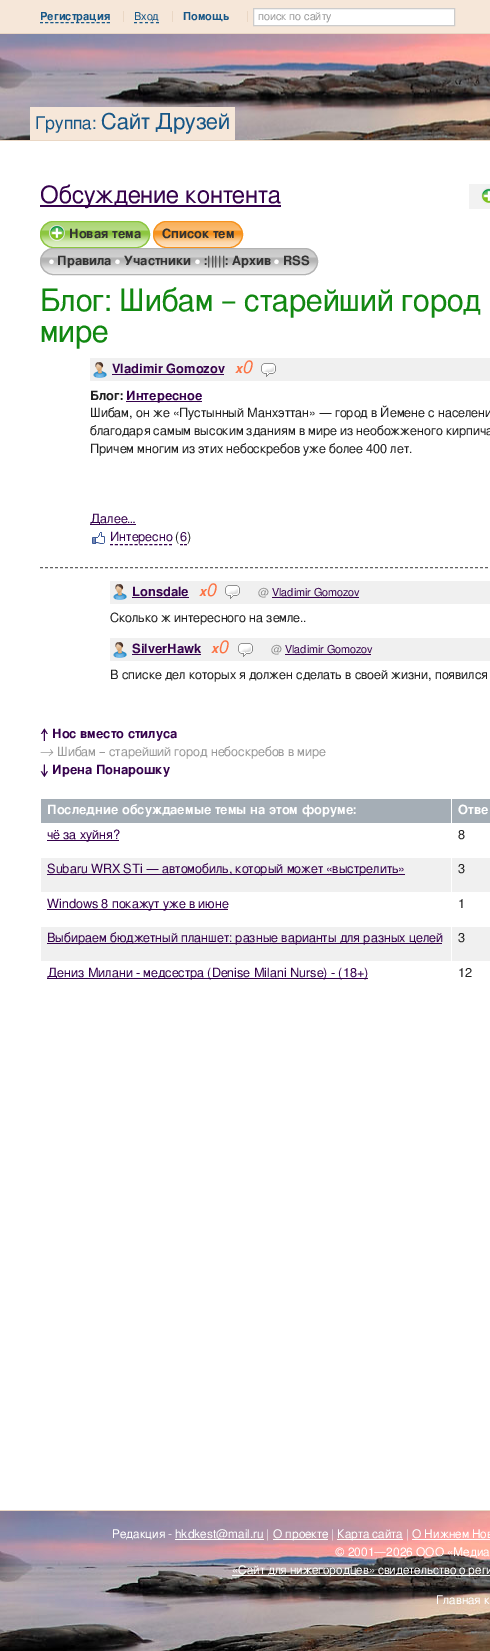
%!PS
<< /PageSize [490 1651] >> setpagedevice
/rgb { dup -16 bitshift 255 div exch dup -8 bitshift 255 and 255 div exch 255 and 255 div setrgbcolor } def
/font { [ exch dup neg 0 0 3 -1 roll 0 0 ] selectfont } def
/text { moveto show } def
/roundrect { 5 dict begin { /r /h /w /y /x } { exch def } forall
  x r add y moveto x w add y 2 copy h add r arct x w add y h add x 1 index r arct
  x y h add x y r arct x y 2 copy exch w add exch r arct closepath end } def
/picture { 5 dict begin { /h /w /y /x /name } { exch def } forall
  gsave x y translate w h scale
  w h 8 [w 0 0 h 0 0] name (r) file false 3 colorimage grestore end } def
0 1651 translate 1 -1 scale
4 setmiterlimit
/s1 { /FreeSans-SemiBold 11 font 16#175787 rgb } def
/s2 { /FreeSans-Regular 11 font 16#175787 rgb } def
/s3 { /FreeSans-Regular 11 font 16#999999 rgb } def
/s4 { /FreeSans-Regular 17.5 font 16#175787 rgb } def
/s5 { /FreeSans-Regular 22 font 16#175787 rgb } def
/s6 { /FreeSans-Regular 24 font 16#36024D rgb } def
/s7 { /FreeSans-SemiBold 12.8 font 16#333333 rgb } def
/s8 { /FreeSans-SemiBold 12.8 font 16#FFFFFF rgb } def
/s9 { /FreeSans-Regular 30.75 font 16#118811 rgb } def
/s10 { /FreeSans-SemiBold 12.8 font 16#36024D rgb } def
/s11 { /FreeSans-SemiBoldItalic 13 font 16#FC7445 rgb } def
/s12 { /FreeSans-Italic 18 font 16#FC7445 rgb } def
/s13 { /FreeSans-SemiBold 12.8 font 16#202020 rgb } def
/s14 { /FreeSans-Regular 12.8 font 16#202020 rgb } def
/s15 { /FreeSans-Regular 12.8 font 16#36024D rgb } def
/s16 { /FreeSans-Regular 11 font 16#8F8F8F rgb } def
/s17 { /FreeSans-Regular 11 font 16#36024D rgb } def
/s18 { /FreeSans-SemiBoldItalic 14 font 16#36024D rgb } def
/s19 { /FreeSans-Italic 14 font 16#999999 rgb } def
/s20 { /FreeSans-Regular 12.8 font 16#999999 rgb } def
/s21 { /FreeSans-Regular 12 font 16#FFFFFF rgb } def
16#FFFFFF rgb
0 0 490 1651 rectfill
(pic1.raw) 0 34 490 106 picture
16#EAD7C4 rgb
0 140 490 1 rectfill
16#F6E7D9 rgb
0 0 490 33 rectfill
16#EAD7C4 rgb
0 33 490 1 rectfill
16#175787 rgb
[3 2.15] 0 setdash
40 22.5 moveto 110 22.5 lineto stroke
s1
(Регистрация) 40 20 text
s2
(Вход) 134 20 text
16#EAD7C4 rgb
123 11 1 11 rectfill
16#175787 rgb
[3 2.5] 0 setdash
134 22.5 moveto 159 22.5 lineto stroke
s1
(Помощь) 183 20 text
16#EAD7C4 rgb
172 11 1 11 rectfill
247 11 1 11 rectfill
16#FFFFFF rgb
253.5 8.5 moveto 454.5 8.5 lineto 454.5 25.5 lineto 253.5 25.5 lineto closepath gsave fill grestore
16#CCCCCC rgb
[] 0 setdash
stroke
s3
(поиск по сайту) 258 20 text
16#F6E7D9 rgb
30 107 205 33 rectfill
s4
(Группа:) 35 129 text
s5
(Сайт Друзей) 101 129 text
16#36024D rgb
40 205 241 2 rectfill
s6
(Обсуждение контента) 40 203 text
16#F2F2F2 rgb
469 184 21 25 rectfill
(pic2.raw) 481 188 9 16 picture
16#8CC63F rgb
40 221 110 27 13.5 roundrect fill
(pic3.raw) 40 221 110 27 picture
40.5 221.5 109 26 13 roundrect stroke
(pic4.raw) 49 225 16 16 picture
s7
(Новая тема) 69 238 text
16#F7931E rgb
153 221 90 27 13.5 roundrect fill
(pic5.raw) 153 221 90 27 picture
153.5 221.5 89 26 13 roundrect stroke
s7
(Список тем) 162 238 text
16#B3B3B3 rgb
40 248 278 27 13.5 roundrect fill
(pic6.raw) 40 248 278 27 picture
40.5 248.5 277 26 13 roundrect stroke
s8
(•) 49 265 text
s7
(Правила) 57 265 text
s8
(•) 115 265 text
s7
(Участники) 124 265 text
s8
(•) 195 265 text
s7
(:|||||: Архив) 204 265 text
s8
(•) 274 265 text
s7
(RSS) 283 265 text
16#626262 rgb
[3 2] 0 setdash
40 567.5 moveto 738 567.5 lineto stroke
s9
(Блог: Шибам – старейший город) 40 311 text
(мире) 40 342 text
16#F0F0F0 rgb
90 358 400 23 rectfill
(pic7.raw) 93 362 14 16 picture
s10
(Vladimir Gomozov) 112 373 text
112 374 112 1 rectfill
s11
(x) 235 373 text
s12
(0) 242 373 text
(pic8.raw) 261 363 15 14 picture
s13
(Блог:) 90 400 text
16#36024D rgb
126 401 76 1 rectfill
(Интересное) 126 400 text
s14
(Шибам, он же «Пустынный Манхэттан» — город в Йемене с населени) 90 417 text
(благодаря самым высоким зданиям в мире из необожженого кирпича) 90 435 text
(Причем многим из этих небоскребов уже более 400 лет.) 90 453 text
16#36024D rgb
90 524 46 1 rectfill
(Далее…) 90 523 text
(pic9.raw) 92 532 13 12 picture
(Интересно) 110 541 text
[3 1.92] 0 setdash
110 544.5 moveto 172 544.5 lineto stroke
s14
(\() 175 541 text
16#36024D rgb
[] 0 setdash
180 544.5 moveto 183 544.5 lineto 184 544.5 moveto 187 544.5 lineto stroke
(6) 180 541 text
s14
(\)) 187 541 text
16#F0F0F0 rgb
110 581 380 23 rectfill
(pic7.raw) 113 584 14 16 picture
s10
(Lonsdale) 132 596 text
132 597 57 1 rectfill
s11
(x) 199 596 text
s12
(0) 206 596 text
(pic8.raw) 225 585 15 14 picture
s16
(@) 258 596 text
s17
(Vladimir Gomozov) 272 596 text
272 597 87 1 rectfill
s14
(Сколько ж интересного на земле..) 110 622 text
16#F0F0F0 rgb
110 638 380 23 rectfill
(pic7.raw) 113 642 14 16 picture
s10
(SilverHawk) 132 653 text
132 654 69 1 rectfill
s11
(x) 211 653 text
s12
(0) 218 653 text
(pic8.raw) 238 643 15 14 picture
s16
(@) 271 653 text
s17
(Vladimir Gomozov) 285 653 text
285 654 86 1 rectfill
s14
(В списке дел которых я должен сделать в своей жизни, появился) 110 679 text
s18
(↑) 40 738 text
s10
(Нос вместо стилуса) 52 738 text
s19
(→) 40 756 text
s20
(Шибам – старейший город небоскребов в мире) 57 756 text
s18
(↓) 40 774 text
s10
(Ирена Понарошку) 52 774 text
16#A5AEB6 rgb
41 799 410 24 rectfill
s8
(Последние обсуждаемые темы на этом форуме:) 47 814 text
16#A5AEB6 rgb
452 799 38 24 rectfill
s8
(Отве) 458 814 text
16#36024D rgb
47 840 72 1 rectfill
s15
(чё за хуйня?) 47 839 text
s14
(8) 458 839 text
16#F0F0F0 rgb
41 858 449 34 rectfill
16#FFFFFF rgb
451 857 1 36 rectfill
16#36024D rgb
47 874 358 1 rectfill
(Subaru WRX STi — автомобиль, который может «выстрелить») 47 873 text
s14
(3) 458 873 text
16#36024D rgb
47 909 181 1 rectfill
(Windows 8 покажут уже в июне) 47 908 text
s14
(1) 458 908 text
16#F0F0F0 rgb
41 927 449 34 rectfill
16#FFFFFF rgb
451 926 1 36 rectfill
16#36024D rgb
47 943 395 1 rectfill
(Выбираем бюджетный планшет: разные варианты для разных целей) 47 942 text
s14
(3) 458 942 text
16#36024D rgb
47 978 321 1 rectfill
(Дениз Милани - медсестра \(Denise Milani Nurse\) - \(18+\)) 47 977 text
s14
(12) 458 977 text
(pic10.raw) 0 1511 490 140 picture
16#EAD7C4 rgb
0 1510 490 1 rectfill
s21
(Редакция -) 112 1538 text
175 1539 89 1 rectfill
(hkdkest@mail.ru |) 175 1538 text
273 1539 55 1 rectfill
(О проекте |) 273 1538 text
337 1539 66 1 rectfill
(Карта сайта | О Нижнем Нов) 337 1538 text
412 1539 78 1 rectfill
(© 2001—2026 ООО «Медиа) 335 1556 text
232 1575 258 1 rectfill
(«Сайт для нижегородцев» свидетельство о реги) 232 1574 text
(Главная к) 436 1604 text
showpage
